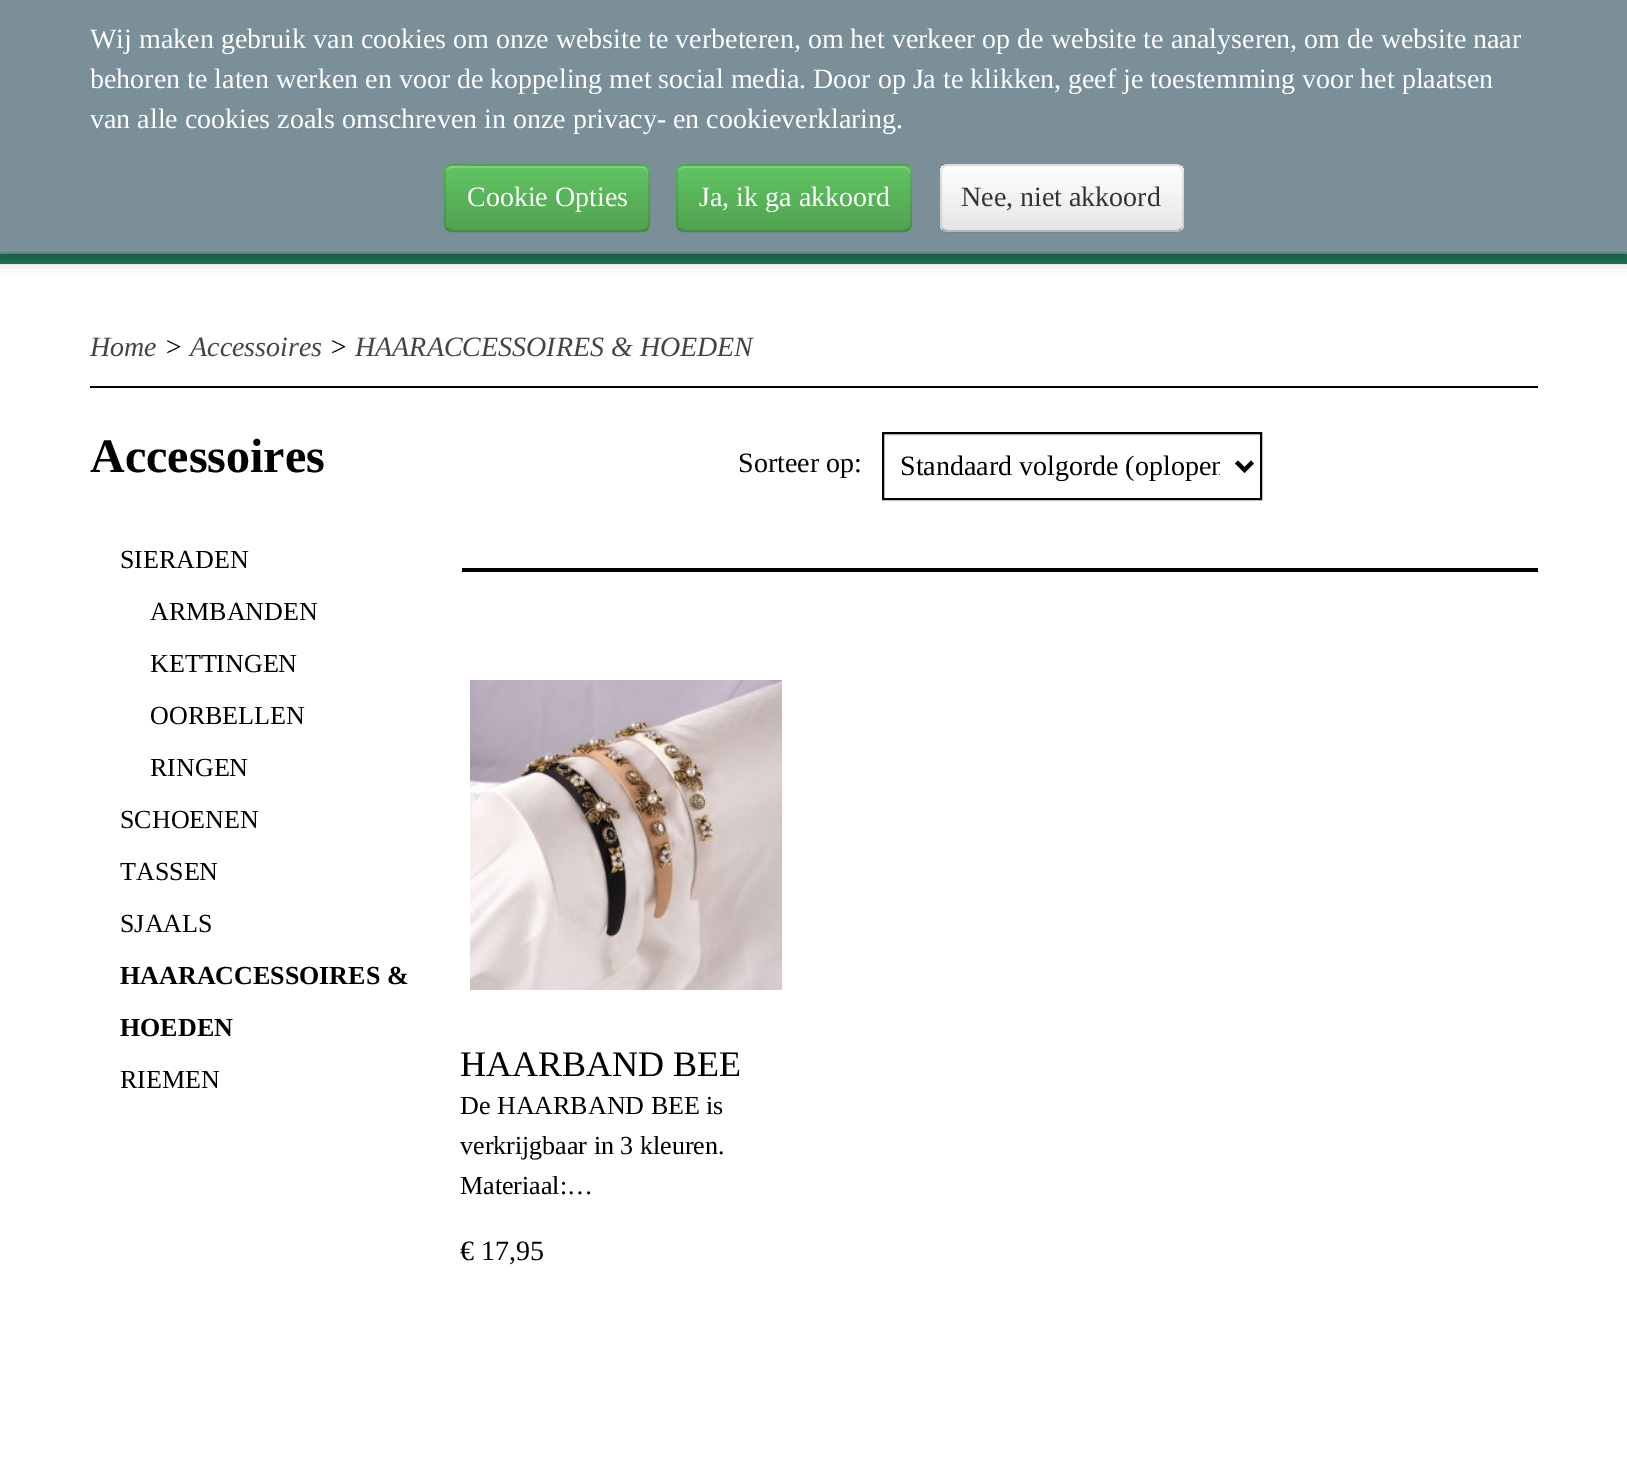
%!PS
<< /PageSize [1627 1464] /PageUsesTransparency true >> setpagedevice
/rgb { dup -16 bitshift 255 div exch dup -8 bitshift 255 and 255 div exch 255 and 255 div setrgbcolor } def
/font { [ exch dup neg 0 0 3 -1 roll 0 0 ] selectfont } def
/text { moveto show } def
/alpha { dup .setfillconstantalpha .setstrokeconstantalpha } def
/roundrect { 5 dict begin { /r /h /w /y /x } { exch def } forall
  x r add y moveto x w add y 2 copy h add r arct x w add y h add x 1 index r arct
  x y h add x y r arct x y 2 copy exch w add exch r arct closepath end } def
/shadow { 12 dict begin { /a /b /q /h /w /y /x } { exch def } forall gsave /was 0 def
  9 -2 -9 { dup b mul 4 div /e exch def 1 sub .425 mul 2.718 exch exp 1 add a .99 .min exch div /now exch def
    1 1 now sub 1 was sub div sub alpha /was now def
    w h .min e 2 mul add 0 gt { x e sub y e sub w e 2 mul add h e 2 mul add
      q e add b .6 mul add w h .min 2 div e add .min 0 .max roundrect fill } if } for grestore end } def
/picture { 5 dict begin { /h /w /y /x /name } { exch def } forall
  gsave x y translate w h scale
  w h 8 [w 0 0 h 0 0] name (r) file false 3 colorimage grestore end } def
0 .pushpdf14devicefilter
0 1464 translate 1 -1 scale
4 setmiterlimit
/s1 { /LiberationSerif-Regular 28 font 16#FFFFFF rgb } def
/s2 { /LiberationSerif-Regular 28 font 16#333333 rgb } def
/s3 { /LiberationSerif-Italic 28 font 16#444444 rgb } def
/s4 { /LiberationSerif-Italic 28 font 16#000000 rgb } def
/s5 { /LiberationSerif-Bold 48 font 16#000000 rgb } def
/s6 { /LiberationSerif-Regular 26 font 16#000000 rgb } def
/s7 { /LiberationSerif-Bold 26 font 16#000000 rgb } def
/s8 { /LiberationSerif-Regular 28 font 16#000000 rgb } def
/s9 { /LiberationSerif-Regular 36 font 16#000000 rgb } def
16#FFFFFF rgb
0 0 1627 1464 rectfill
16#1E7A5B rgb
0 254 1627 10 rectfill
16#000000 rgb
0 6 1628 254 0 7 0.3 shadow
16#7A8F98 rgb
0 0 1627 252 rectfill
16#697E87 rgb
0 252 1627 2 rectfill
s1
(Wij maken gebruik van cookies om onze website te verbeteren, om het verkeer op de website te analyseren, om de website naar) 90 48 text
(behoren te laten werken en voor de koppeling met social media. Door op Ja te klikken, geef je toestemming voor het plaatsen) 90 88 text
(van alle cookies zoals omschreven in onze privacy- en cookieverklaring.) 90 128 text
16#5BB75B rgb
444 164 206 68 8 roundrect fill
gsave
444 164 206 68 8 roundrect clip newpath
gsave 444 166 moveto 650 166 lineto 650 230 lineto 444 230 lineto closepath clip newpath
<< /ShadingType 2 /ColorSpace /DeviceRGB /Coords [547 166 547 230] /Extend [true true] /Function << /FunctionType 2 /Domain [0 1] /C0 [0.384 0.769 0.384] /C1 [0.318 0.639 0.318] /N 1 >> >> shfill grestore
grestore
0.2 alpha
16#FFFFFF rgb
452 168 moveto 642 168 lineto 645 168 648 171 648 174 curveto 648 172 lineto 648 169 645 166 642 166 curveto 452 166 lineto 449 166 446 169 446 172 curveto 446 174 lineto 446 171 449 168 452 168 curveto closepath fill
0.25 alpha
16#000000 rgb
2 setlinewidth
647 229 moveto 645.5 230.5 644 231 642 231 curveto 452 231 lineto 450 231 448.5 230.5 447 229 curveto stroke
0.1 alpha
447 229 moveto 443.5 225.5 445 219 445 215.5 curveto 445 198 lineto 445 157.5 439.5 165 483.5 165 curveto 642 165 lineto 650.5 165 649 175.5 649 180.5 curveto 649 215.5 lineto 649 219 650.5 225.5 647 229 curveto stroke
1 alpha
s1
(Cookie Opties) 467 206 text
16#5BB75B rgb
676 164 236 68 8 roundrect fill
gsave
676 164 236 68 8 roundrect clip newpath
gsave 676 166 moveto 912 166 lineto 912 230 lineto 676 230 lineto closepath clip newpath
<< /ShadingType 2 /ColorSpace /DeviceRGB /Coords [794 166 794 230] /Extend [true true] /Function << /FunctionType 2 /Domain [0 1] /C0 [0.384 0.769 0.384] /C1 [0.318 0.639 0.318] /N 1 >> >> shfill grestore
grestore
0.2 alpha
16#FFFFFF rgb
684 168 moveto 904 168 lineto 907 168 910 171 910 174 curveto 910 172 lineto 910 169 907 166 904 166 curveto 684 166 lineto 681 166 678 169 678 172 curveto 678 174 lineto 678 171 681 168 684 168 curveto closepath fill
0.25 alpha
16#000000 rgb
909 229 moveto 907.5 230.5 906 231 904 231 curveto 684 231 lineto 682 231 680.5 230.5 679 229 curveto stroke
0.1 alpha
679 229 moveto 677.5 227.5 677 226 677 224 curveto 677 172 lineto 677 170 677.5 168.5 679 167 curveto 680.5 165.5 682 165 684 165 curveto 904 165 lineto 906 165 907.5 165.5 909 167 curveto 910.5 168.5 911 170 911 172 curveto 911 224 lineto 911 226 910.5 227.5 909 229 curveto stroke
1 alpha
s1
(Ja, ik ga akkoord) 699 206 text
16#F5F5F5 rgb
940 164 244 68 8 roundrect fill
gsave
940 164 244 68 8 roundrect clip newpath
gsave 940 166 moveto 1184 166 lineto 1184 230 lineto 940 230 lineto closepath clip newpath
<< /ShadingType 2 /ColorSpace /DeviceRGB /Coords [1062 166 1062 230] /Extend [true true] /Function << /FunctionType 2 /Domain [0 1] /C0 [1 1 1] /C1 [0.902 0.902 0.902] /N 1 >> >> shfill grestore
grestore
0.25 alpha
16#000000 rgb
1181 229 moveto 1179.5 230.5 1178 231 1176 231 curveto 948 231 lineto 946 231 944.5 230.5 943 229 curveto stroke
0.1 alpha
943 229 moveto 941.5 227.5 941 226 941 224 curveto 941 172 lineto 941 170 941.5 168.5 943 167 curveto 944.5 165.5 946 165 948 165 curveto 1176 165 lineto 1178 165 1179.5 165.5 1181 167 curveto 1182.5 168.5 1183 170 1183 172 curveto 1183 224 lineto 1183 226 1182.5 227.5 1181 229 curveto stroke
1 alpha
s2
(Nee, niet akkoord) 961 206 text
16#000000 rgb
90 386 1448 2 rectfill
s3
(Home) 90 356 text
s4
(>) 164 356 text
s3
(Accessoires) 190 356 text
s4
(>) 329 356 text
s3
(HAARACCESSOIRES & HOEDEN) 355 356 text
s5
(Accessoires) 90 472 text
s6
(SIERADEN) 120 568 text
(ARMBANDEN) 150 620 text
(KETTINGEN) 150 672 text
(OORBELLEN) 150 724 text
(RINGEN) 150 776 text
(SCHOENEN) 120 828 text
(TASSEN) 120 880 text
(SJAALS) 120 932 text
s7
(HAARACCESSOIRES &) 120 984 text
(HOEDEN) 120 1036 text
s6
(RIEMEN) 120 1088 text
s8
(Sorteer op:) 738 472 text
16#ECECEC rgb
884 434 376 2 rectfill
16#000000 rgb
883 433 378 66 rectstroke
4 setlinewidth
1236.5 462 moveto 1244.5 470 lineto 1252.5 462 lineto stroke
gsave
900 450 320 34 rectclip
(Standaard volgorde \(oplopen) 900 475 text
grestore
462 568 1076 4 rectfill
(pic1.raw) 470 680 312 310 picture
s9
(HAARBAND BEE) 460 1076 text
s6
(De HAARBAND BEE is) 460 1114 text
(verkrijgbaar in 3 kleuren.) 460 1154 text
(Materiaal:…) 460 1194 text
s8
(€ 17,95) 460 1260 text
.poppdf14devicefilter showpage
